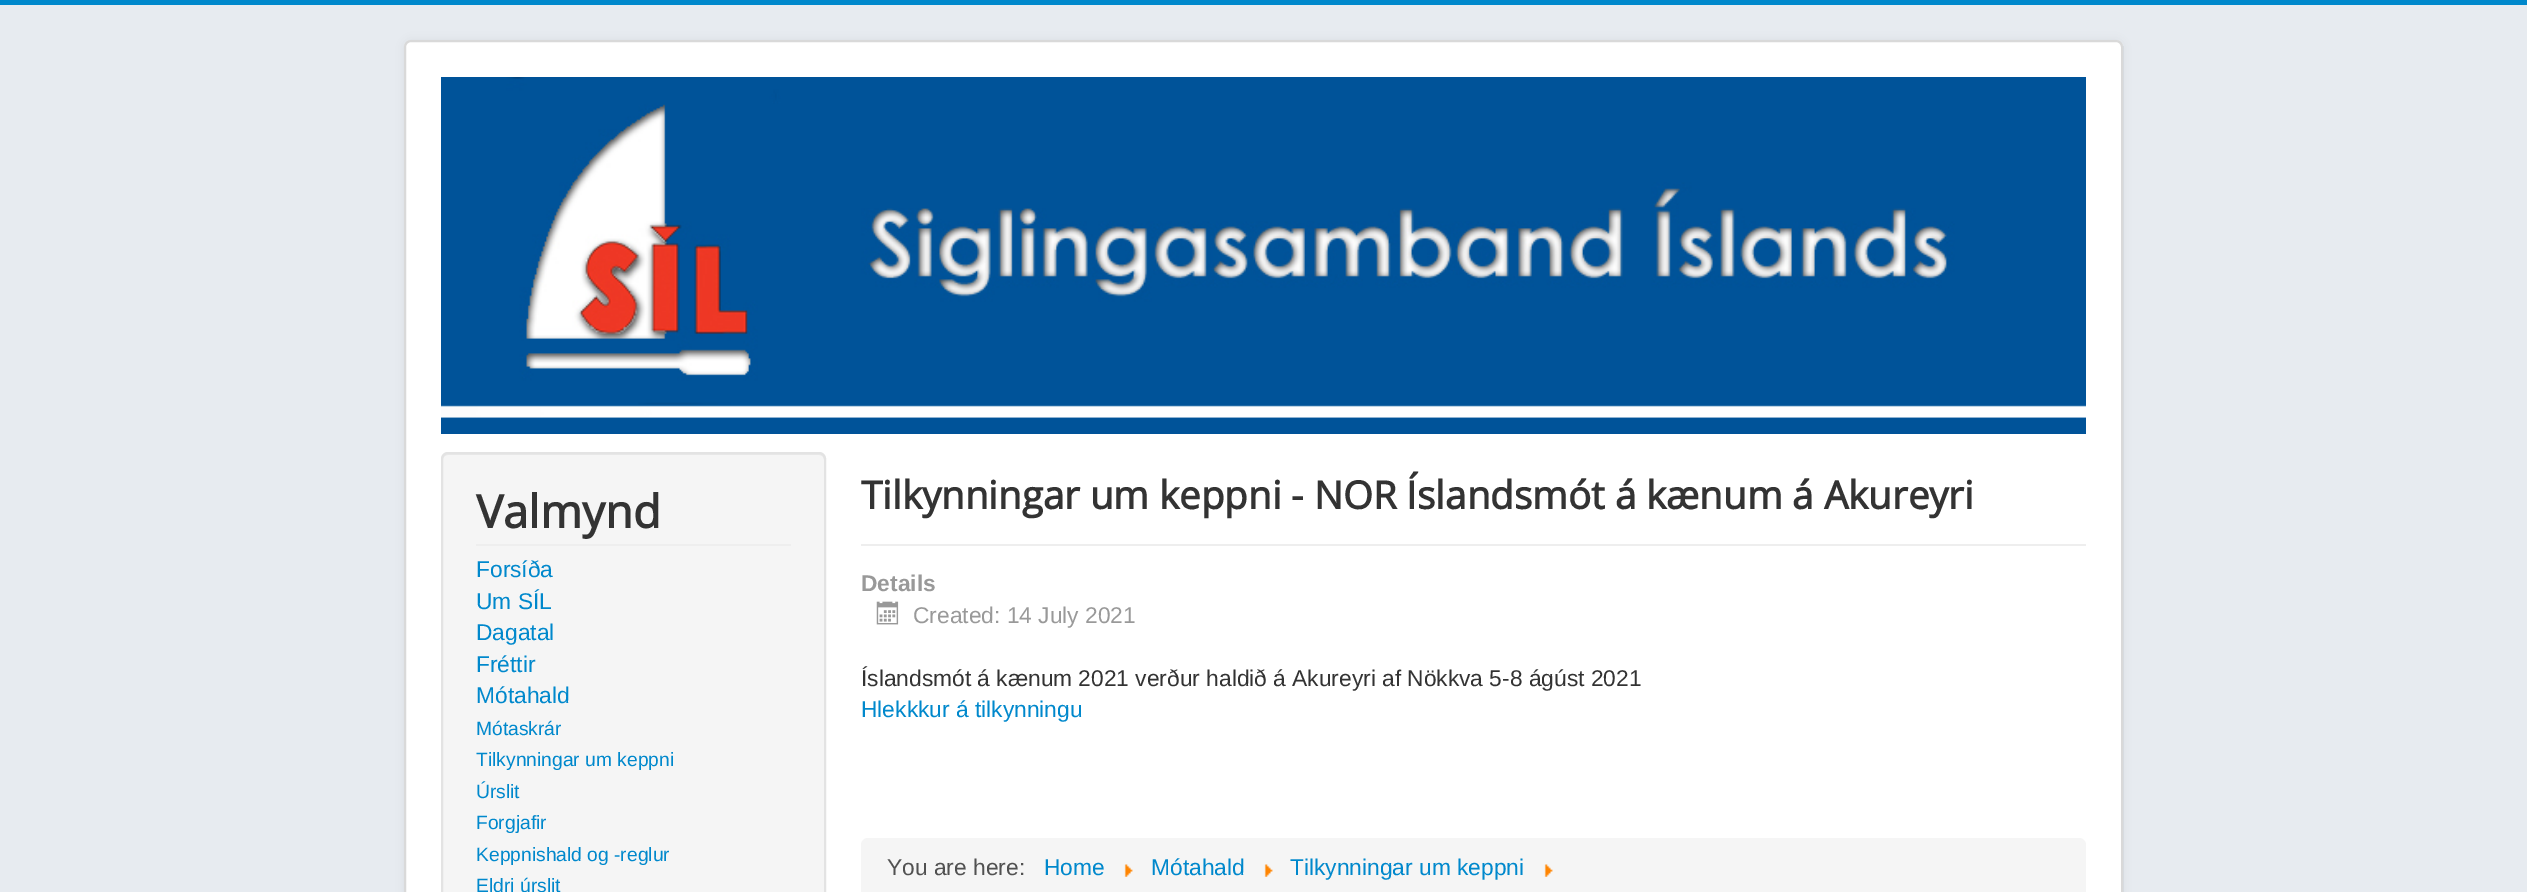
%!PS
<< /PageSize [2527 892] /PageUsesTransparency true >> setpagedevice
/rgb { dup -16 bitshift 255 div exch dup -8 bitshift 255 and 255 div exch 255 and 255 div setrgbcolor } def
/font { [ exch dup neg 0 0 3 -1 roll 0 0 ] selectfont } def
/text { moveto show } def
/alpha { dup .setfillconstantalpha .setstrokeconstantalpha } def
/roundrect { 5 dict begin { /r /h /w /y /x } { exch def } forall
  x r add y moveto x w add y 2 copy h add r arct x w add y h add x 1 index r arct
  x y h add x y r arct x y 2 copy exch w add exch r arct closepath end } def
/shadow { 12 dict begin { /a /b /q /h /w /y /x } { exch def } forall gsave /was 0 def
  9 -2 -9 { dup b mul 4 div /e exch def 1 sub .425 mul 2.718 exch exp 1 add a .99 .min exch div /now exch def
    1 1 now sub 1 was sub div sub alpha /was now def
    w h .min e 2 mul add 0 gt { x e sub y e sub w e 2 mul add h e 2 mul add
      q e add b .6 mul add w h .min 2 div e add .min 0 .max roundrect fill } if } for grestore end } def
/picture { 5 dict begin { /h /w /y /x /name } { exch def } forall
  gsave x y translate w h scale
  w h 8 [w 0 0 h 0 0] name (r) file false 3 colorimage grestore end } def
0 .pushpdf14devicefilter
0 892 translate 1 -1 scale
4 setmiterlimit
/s1 { /OpenSans-Bold 45.5 font 16#333333 rgb } def
/s2 { /LiberationSans-Regular 22.75 font 16#0088CC rgb } def
/s3 { /LiberationSans-Regular 19.25 font 16#0088CC rgb } def
/s4 { /OpenSans-Bold 38.5 font 16#333333 rgb } def
/s5 { /LiberationSans-Bold 22.75 font 16#999999 rgb } def
/s6 { /LiberationSans-Regular 22.75 font 16#999999 rgb } def
/s7 { /LiberationSans-Regular 22.75 font 16#333333 rgb } def
/s8 { /LiberationSans-Regular 22.75 font 16#515151 rgb } def
16#E7EBF0 rgb
0 0 2527 892 rectfill
16#0088CC rgb
0 0 2527 5 rectfill
16#000000 rgb
404 40 1719 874 7 5 0.05 shadow
16#FFFFFF rgb
404 40 1719 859 7 roundrect fill
0.15 alpha
16#000000 rgb
2 setlinewidth
405 41 1717 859 6 roundrect stroke
1 alpha
(pic1.raw) 441 77 1645 357 picture
16#F5F5F5 rgb
441 452 385 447 7 roundrect fill
16#E9E9E9 rgb
448 455 moveto 819 455 lineto 822 455 824 457 824 460 curveto 824 458 lineto 824 455 822 453 819 453 curveto 448 453 lineto 445 453 443 455 443 458 curveto 443 460 lineto 443 457 445 455 448 455 curveto closepath fill
16#E3E3E3 rgb
442 453 383 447 6 roundrect stroke
16#EEEEEE rgb
476 544 315 2 rectfill
s1
(Valmynd) 476 528 text
s2
(Forsíða) 476 577 text
(Um SÍL) 476 609 text
(Dagatal) 476 640 text
(Fréttir) 476 672 text
(Mótahald) 476 703 text
s3
(Mótaskrár) 476 735 text
(Tilkynningar um keppni) 476 766 text
(Úrslit) 476 798 text
(Forgjafir) 476 829 text
(Keppnishald og -reglur) 476 861 text
(Eldri úrslit) 476 892 text
16#EEEEEE rgb
861 544 1225 2 rectfill
s4
(Tilkynningar um keppni - NOR Íslandsmót á kænum á Akureyri) 861 509 text
s5
(Details) 861 591 text
(pic2.raw) 876 601 23 24 picture
s6
(Created: 14 July 2021) 913 623 text
s7
(Íslandsmót á kænum 2021 verður haldið á Akureyri af Nökkva 5-8 ágúst 2021) 861 686 text
s2
(Hlekkkur á tilkynningu) 861 717 text
16#F5F5F5 rgb
861 838 1225 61 7 roundrect fill
s8
(You are here:) 887 875 text
s2
(Home) 1044 875 text
(pic3.raw) 1124 864 9 13 picture
(Mótahald) 1151 875 text
(pic4.raw) 1264 864 9 13 picture
(Tilkynningar um keppni) 1290 875 text
(pic4.raw) 1544 864 9 13 picture
.poppdf14devicefilter showpage
